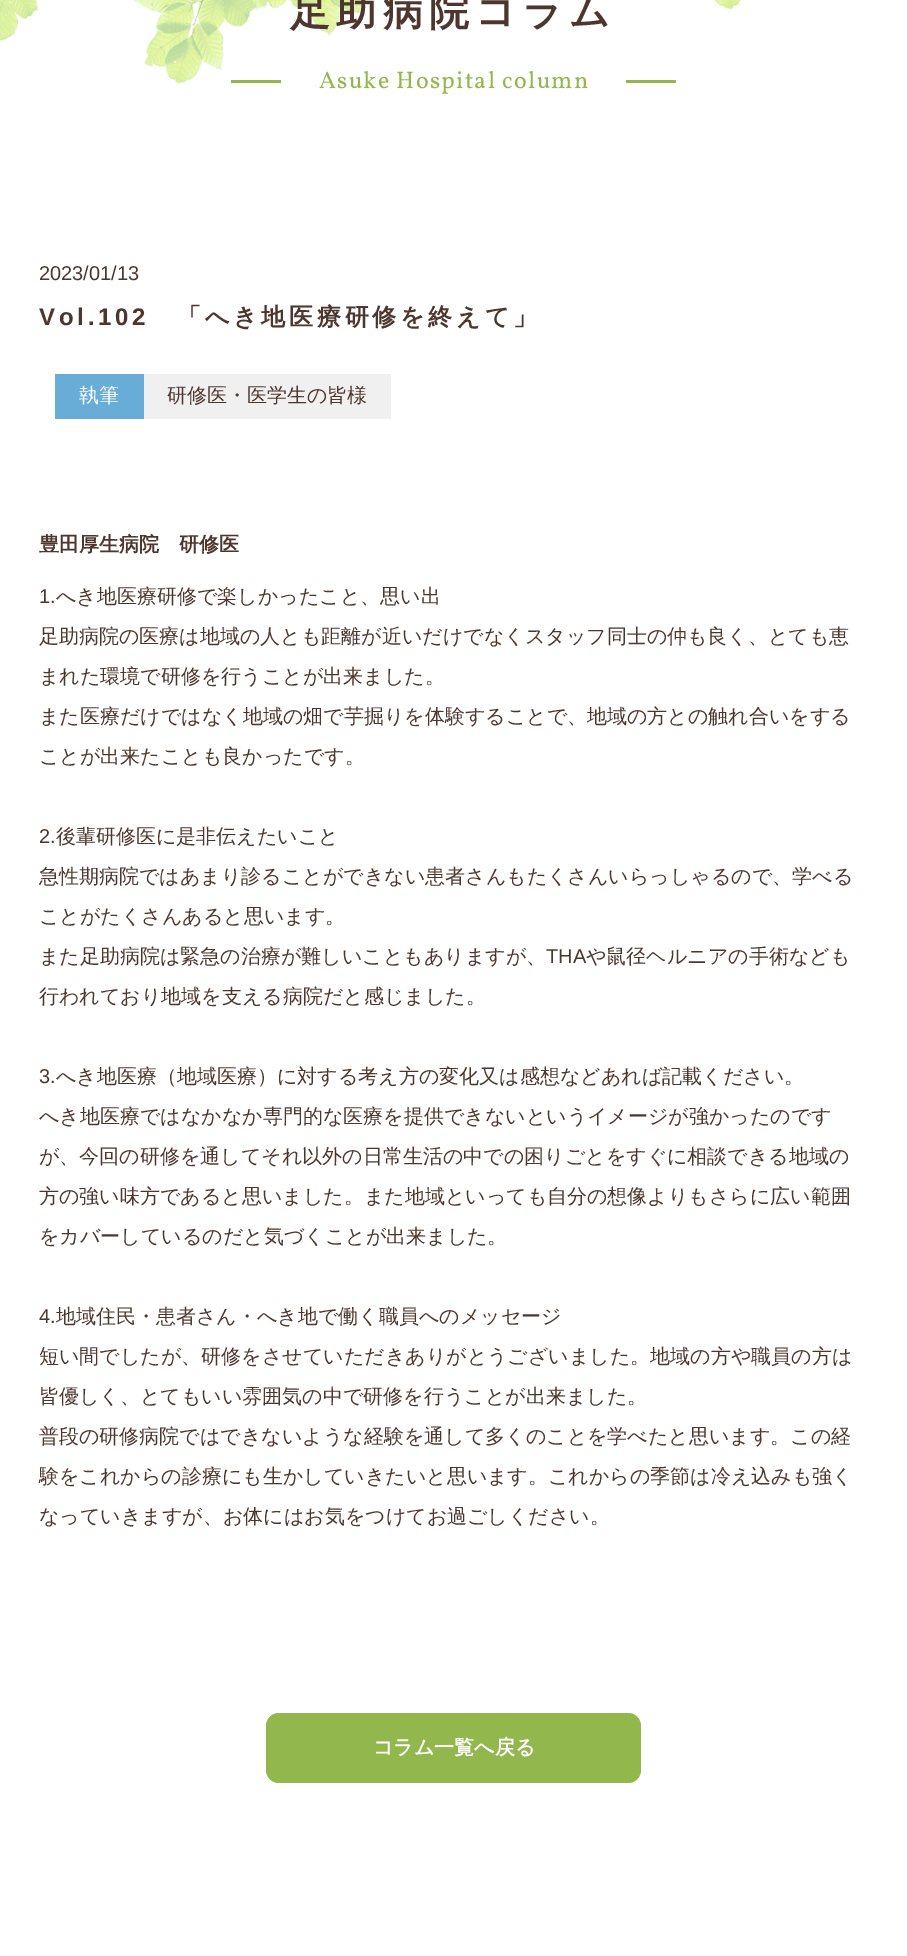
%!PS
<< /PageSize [907 1956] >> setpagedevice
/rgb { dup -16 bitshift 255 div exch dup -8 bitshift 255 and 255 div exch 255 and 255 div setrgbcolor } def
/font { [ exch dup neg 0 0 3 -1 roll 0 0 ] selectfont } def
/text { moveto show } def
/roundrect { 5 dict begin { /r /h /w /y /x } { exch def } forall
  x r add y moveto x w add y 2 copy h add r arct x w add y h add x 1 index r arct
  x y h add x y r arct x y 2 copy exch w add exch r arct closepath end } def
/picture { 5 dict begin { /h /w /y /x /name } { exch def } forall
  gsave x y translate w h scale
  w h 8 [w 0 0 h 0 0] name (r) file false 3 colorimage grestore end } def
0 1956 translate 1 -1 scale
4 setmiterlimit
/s1 { /LiberationSans-Regular 20 font 16#4D362E rgb } def
/s2 { /WenQuanYiZenHei-Medium 20 font 16#FFFFFF rgb } def
/s3 { /WenQuanYiZenHei-Medium 20 font 16#4D362E rgb } def
/s4 { /WenQuanYiZenHei-Bold 20 font 16#4D362E rgb } def
/s5 { /WenQuanYiZenHei-Bold 20 font 16#FFFFFF rgb } def
16#FFFFFF rgb
0 0 907 1956 rectfill
(pic1.raw) 0 0 741 84 picture
/WenQuanYiZenHei-Bold 40 font
16#4D362E rgb
290 25 moveto 6.25 0 (足助病院コラム) ashow
16#92B74C rgb
231 80 50 3 rectfill
/Vollkorn-Regular 24 font
319 88 moveto 1.25 0 (Asuke Hospital column) ashow
626 80 50 3 rectfill
s1
(2023/01/13) 39 280 text
/LiberationSans-Bold 24 font
39 325 moveto 3.75 0 (Vol.102) ashow
/WenQuanYiZenHei-Bold 24 font
177 325 moveto 3.75 0 (「へき地医療研修を終えて」) ashow
16#68ADD7 rgb
55 374 89 45 rectfill
s2
(執筆) 79 402 text
16#F0F0F0 rgb
144 374 247 45 rectfill
s3
(研修医・医学生の皆様) 167 402 text
s4
(豊田厚生病院　研修医) 39 551 text
s1
(1.) 39 603 text
s3
(へき地医療研修で楽しかったこと、思い出) 56 603 text
(足助病院の医療は地域の人とも距離が近いだけでなくスタッフ同士の仲も良く、とても恵) 39 643 text
(まれた環境で研修を行うことが出来ました。) 39 683 text
(また医療だけではなく地域の畑で芋掘りを体験することで、地域の方との触れ合いをする) 39 723 text
(ことが出来たことも良かったです。) 39 763 text
s1
(2.) 39 843 text
s3
(後輩研修医に是非伝えたいこと) 56 843 text
(急性期病院ではあまり診ることができない患者さんもたくさんいらっしゃるので、学べる) 39 883 text
(ことがたくさんあると思います。) 39 923 text
(また足助病院は緊急の治療が難しいこともありますが、) 39 963 text
s1
(THA) 546 963 text
s3
(や鼠径ヘルニアの手術なども) 586 963 text
(行われており地域を支える病院だと感じました。) 39 1003 text
s1
(3.) 39 1083 text
s3
(へき地医療（地域医療）に対する考え方の変化又は感想などあれば記載ください。) 56 1083 text
(へき地医療ではなかなか専門的な医療を提供できないというイメージが強かったのです) 39 1123 text
(が、今回の研修を通してそれ以外の日常生活の中での困りごとをすぐに相談できる地域の) 39 1163 text
(方の強い味方であると思いました。また地域といっても自分の想像よりもさらに広い範囲) 39 1203 text
(をカバーしているのだと気づくことが出来ました。) 39 1243 text
s1
(4.) 39 1323 text
s3
(地域住民・患者さん・へき地で働く職員へのメッセージ) 56 1323 text
(短い間でしたが、研修をさせていただきありがとうございました。地域の方や職員の方は) 39 1363 text
(皆優しく、とてもいい雰囲気の中で研修を行うことが出来ました。) 39 1403 text
(普段の研修病院ではできないような経験を通して多くのことを学べたと思います。この経) 39 1443 text
(験をこれからの診療にも生かしていきたいと思います。これからの季節は冷え込みも強く) 39 1483 text
(なっていきますが、お体にはお気をつけてお過ごしください。) 39 1523 text
16#92B74C rgb
266 1713 375 70 13 roundrect fill
s5
(コラム一覧へ戻る) 373 1754 text
showpage
